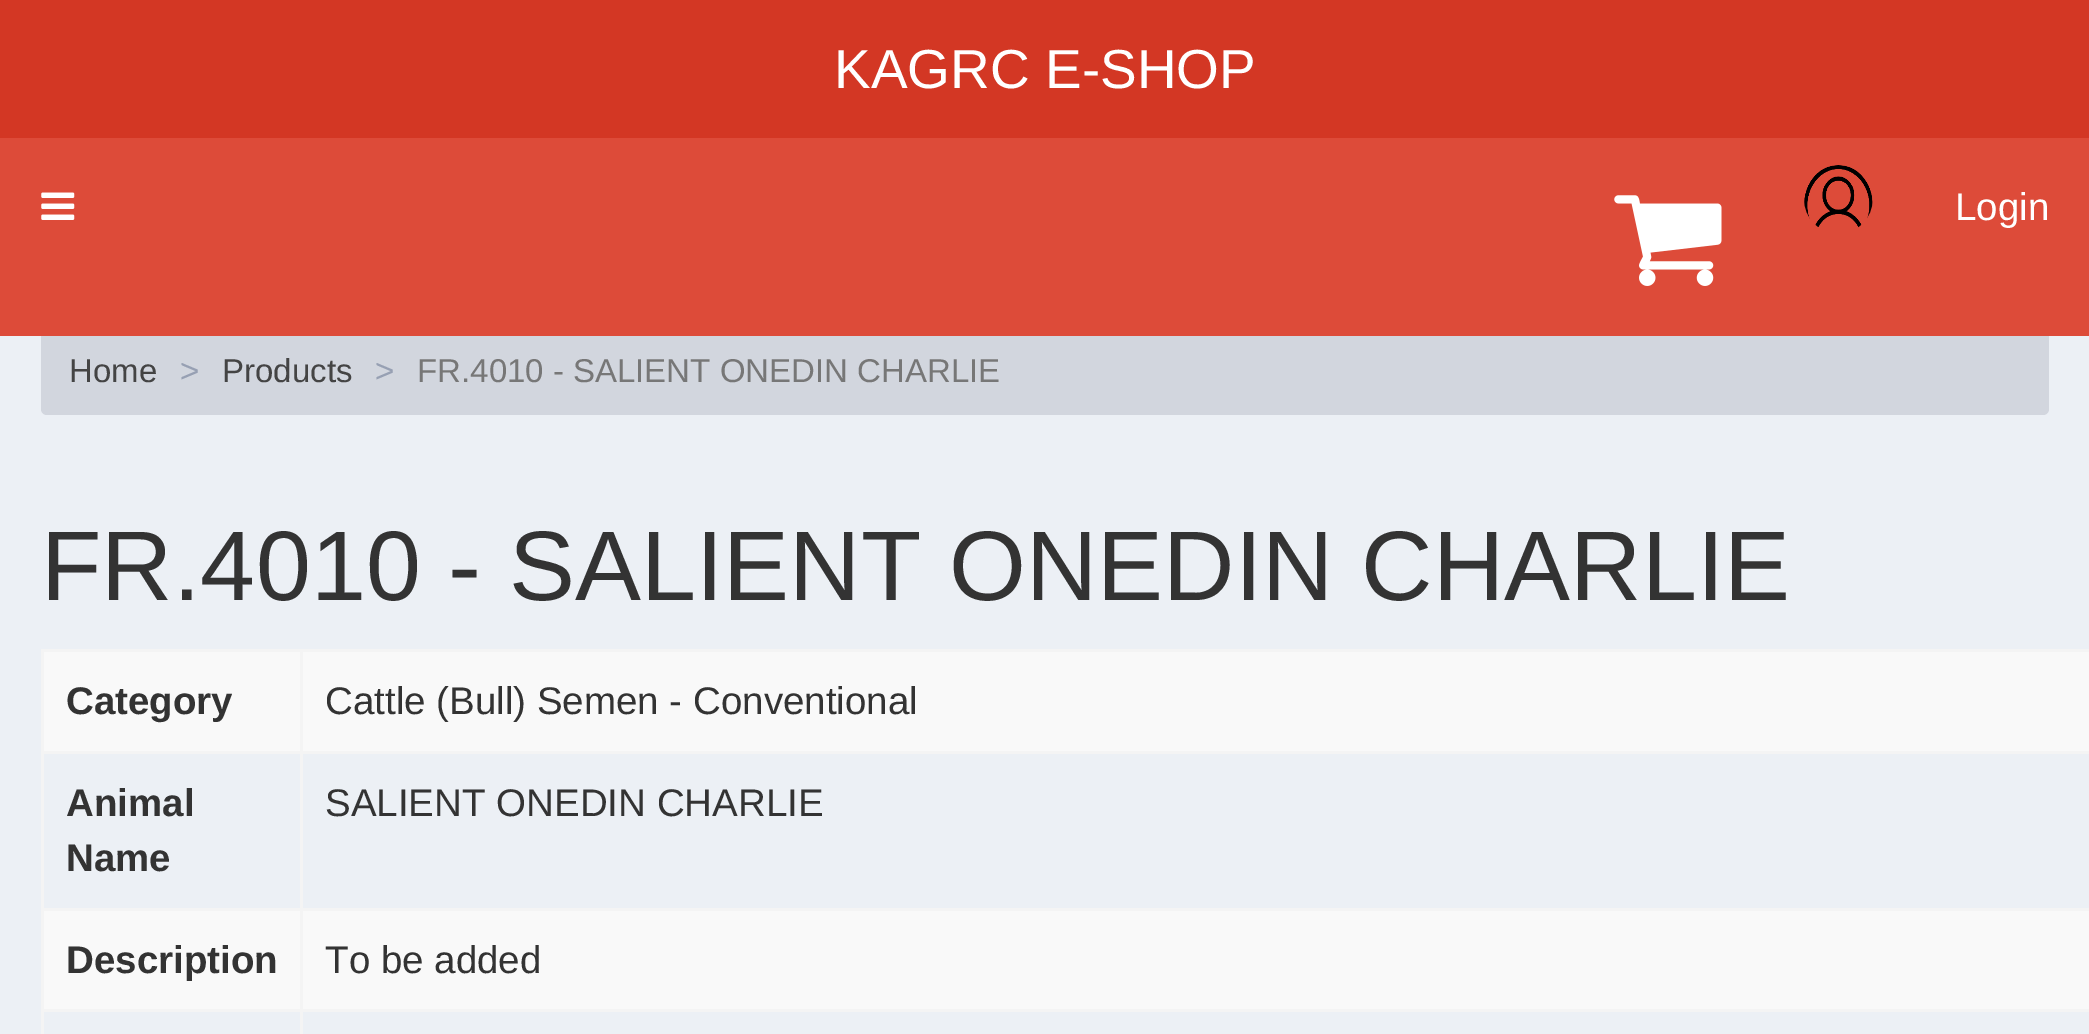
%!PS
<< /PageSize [2089 1034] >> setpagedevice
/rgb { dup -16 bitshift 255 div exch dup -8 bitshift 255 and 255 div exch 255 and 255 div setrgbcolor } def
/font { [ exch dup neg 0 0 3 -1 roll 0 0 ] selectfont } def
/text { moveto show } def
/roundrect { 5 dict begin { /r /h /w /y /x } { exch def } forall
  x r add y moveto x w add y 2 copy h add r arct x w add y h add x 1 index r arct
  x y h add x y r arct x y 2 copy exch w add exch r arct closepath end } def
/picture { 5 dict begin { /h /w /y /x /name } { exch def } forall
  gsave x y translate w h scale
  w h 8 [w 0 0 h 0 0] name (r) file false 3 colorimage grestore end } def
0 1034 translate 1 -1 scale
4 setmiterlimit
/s1 { /LiberationSans-Regular 55 font 16#FFFFFF rgb } def
/s2 { /LiberationSans-Regular 38.5 font 16#FFFFFF rgb } def
/s3 { /LiberationSans-Regular 33 font 16#444444 rgb } def
/s4 { /LiberationSans-Regular 33 font 16#97A0B3 rgb } def
/s5 { /LiberationSans-Regular 33 font 16#777777 rgb } def
/s6 { /LiberationSans-Regular 99 font 16#333333 rgb } def
/s7 { /LiberationSans-Bold 38.5 font 16#333333 rgb } def
/s8 { /LiberationSans-Regular 38.5 font 16#333333 rgb } def
16#ECF0F5 rgb
0 0 2089 1034 rectfill
16#D33724 rgb
0 0 2089 138 rectfill
s1
(KAGRC E-SHOP) 834 88 text
16#D2D6DE rgb
41 330 2008 85 6 roundrect fill
16#DD4B39 rgb
0 138 2089 198 rectfill
(pic1.raw) 41 192 34 28 picture
(pic2.raw) 1614 195 108 91 picture
(pic3.raw) 1804 165 69 63 picture
s2
(Login) 1955 220 text
s3
(Home) 69 382 text
s4
(>) 180 382 text
s3
(Products) 222 382 text
s4
(>) 375 382 text
s5
(FR.4010 - SALIENT ONEDIN CHARLIE) 417 382 text
s6
(FR.4010 - SALIENT ONEDIN CHARLIE) 41 600 text
16#F4F4F4 rgb
41 649 2048 3 rectfill
41 649 3 385 rectfill
16#F9F9F9 rgb
44 652 2045 99 rectfill
s7
(Category) 66 714 text
16#F4F4F4 rgb
300 751 1789 3 rectfill
300 908 1789 3 rectfill
16#F9F9F9 rgb
44 911 2045 98 rectfill
16#F4F4F4 rgb
300 1009 1789 3 rectfill
300 1009 3 25 rectfill
41 1009 262 3 rectfill
300 908 3 104 rectfill
41 908 262 3 rectfill
300 751 3 159 rectfill
41 751 262 3 rectfill
300 649 3 105 rectfill
s8
(Cattle \(Bull\) Semen - Conventional) 325 714 text
s7
(Animal) 66 816 text
(Name) 66 871 text
s8
(SALIENT ONEDIN CHARLIE) 325 816 text
s7
(Description) 66 973 text
s8
(To be added) 325 973 text
showpage
